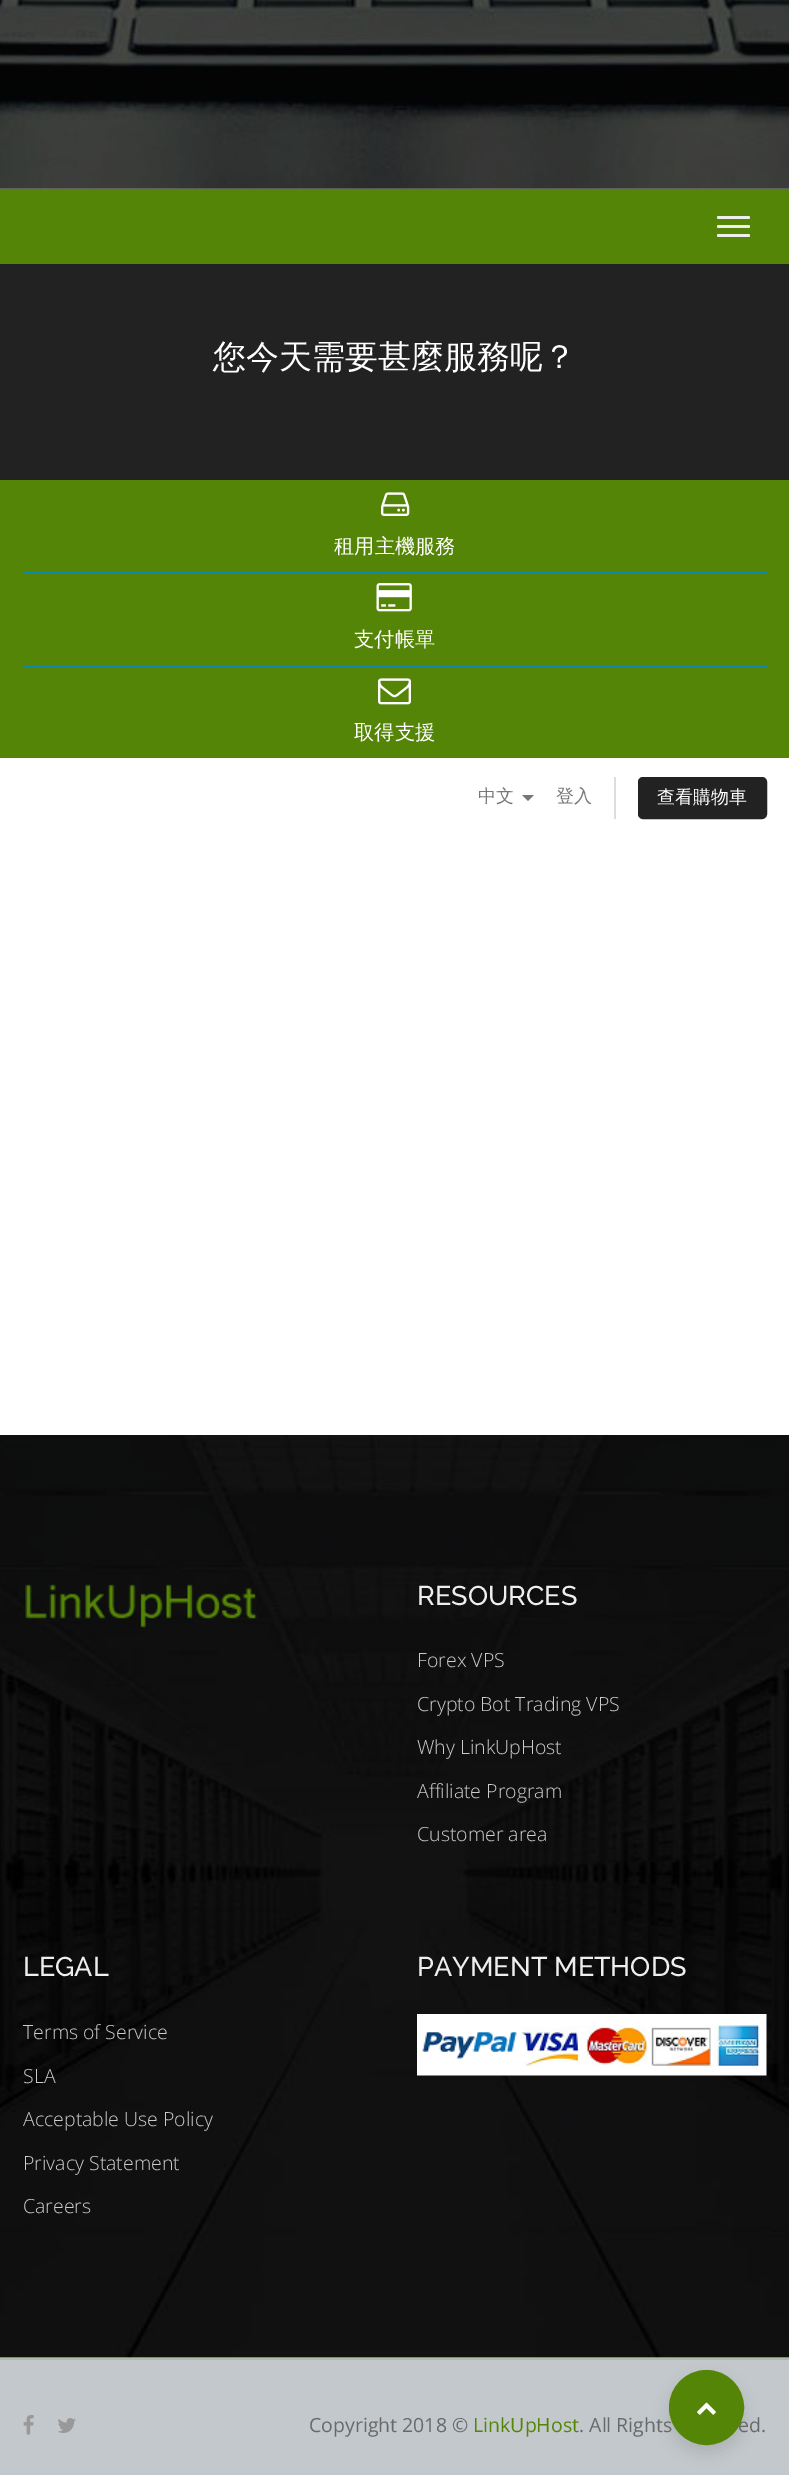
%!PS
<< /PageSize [789 2475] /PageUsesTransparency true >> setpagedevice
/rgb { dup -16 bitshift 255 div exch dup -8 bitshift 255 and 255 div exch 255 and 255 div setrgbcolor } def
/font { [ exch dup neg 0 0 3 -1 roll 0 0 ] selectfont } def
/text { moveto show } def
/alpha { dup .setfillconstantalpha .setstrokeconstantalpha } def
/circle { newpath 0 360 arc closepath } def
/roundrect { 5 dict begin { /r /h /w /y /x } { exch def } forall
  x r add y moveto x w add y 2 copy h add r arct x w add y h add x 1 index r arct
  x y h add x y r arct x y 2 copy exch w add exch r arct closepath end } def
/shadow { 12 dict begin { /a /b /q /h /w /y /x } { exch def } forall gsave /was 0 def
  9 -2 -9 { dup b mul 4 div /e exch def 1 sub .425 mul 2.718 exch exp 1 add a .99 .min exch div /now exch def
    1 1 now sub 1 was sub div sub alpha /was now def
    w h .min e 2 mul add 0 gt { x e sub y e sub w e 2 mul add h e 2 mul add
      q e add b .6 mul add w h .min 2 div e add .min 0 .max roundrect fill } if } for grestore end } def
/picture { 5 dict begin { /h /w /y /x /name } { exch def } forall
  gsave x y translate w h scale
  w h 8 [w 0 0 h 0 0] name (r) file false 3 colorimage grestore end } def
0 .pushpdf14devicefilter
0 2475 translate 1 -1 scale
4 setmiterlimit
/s1 { /WenQuanYiZenHei-Medium 33 font 16#FFFFFF rgb } def
/s2 { /WenQuanYiZenHei-Medium 20.25 font 16#FFFFFF rgb } def
/s3 { /WenQuanYiZenHei-Medium 18 font 16#777777 rgb } def
/s4 { /WenQuanYiZenHei-Medium 18 font 16#FFFFFF rgb } def
/s5 { /Raleway-Medium 27 font 16#EEEEEE rgb } def
/s6 { /OpenSans-Light 19.5 font 16#CCCCCC rgb } def
/s7 { /OpenSans-Regular 19.5 font 16#696969 rgb } def
/s8 { /OpenSans-Regular 19.5 font 16#548506 rgb } def
16#FFFFFF rgb
0 0 789 2475 rectfill
16#838383 rgb
0 188 789 1 rectfill
(pic1.raw) 0 0 789 189 picture
16#548506 rgb
0 189 789 75 rectfill
16#EEEEEE rgb
717 216 33 3 1.5 roundrect fill
717 225 33 3 1.5 roundrect fill
717 234 33 3 1.5 roundrect fill
16#222222 rgb
0 264 789 216 rectfill
s1
(您今天需要甚麼服務呢？) 213 368 text
16#548506 rgb
0 480 789 278 rectfill
16#0E88B0 rgb
23 572 744 2 rectfill
(pic2.raw) 381 492 29 24 picture
s2
(租用主機服務) 334 553 text
16#0E88B0 rgb
23 665 744 2 rectfill
(pic3.raw) 376 583 36 29 picture
s2
(支付帳單) 354 646 text
(pic4.raw) 378 678 33 27 picture
(取得支援) 354 739 text
s3
(中文) 478 802 text
522 795 moveto 534 795 lineto 528 801 lineto closepath fill
(登入) 556 802 text
16#DDDDDD rgb
614 777 2 42 rectfill
16#222222 rgb
639 778 127 40 4 roundrect gsave fill grestore
2 setlinewidth
stroke
s4
(查看購物車) 657 803 text
(pic5.raw) 0 1435 789 923 picture
(pic6.raw) 25 1584 232 44 picture
s5
(RESOURCES) 417 1605 text
s6
(Forex VPS) 417 1667 text
(Crypto Bot Trading VPS) 417 1711 text
(Why LinkUpHost) 417 1754 text
(Affiliate Program) 417 1798 text
(Customer area) 417 1841 text
s5
(LEGAL) 23 1976 text
s6
(Terms of Service) 23 2039 text
(SLA) 23 2083 text
(Acceptable Use Policy) 23 2126 text
(Privacy Statement) 23 2170 text
(Careers) 23 2213 text
s5
(PAYMENT METHODS) 417 1976 text
(pic7.raw) 417 2014 350 62 picture
16#C3C8CC rgb
0 2360 789 115 rectfill
16#ADBBA4 rgb
0 2358 789 2 rectfill
16#000000 rgb
669 2378 75 75 37.5 7.5 0.1 shadow
s7
(. All Rights) 579 2432 text
(ed.) 738 2432 text
16#548506 rgb
706.5 2407.5 36.5 circle gsave fill grestore
stroke
(pic8.raw) 697 2402 19 13 picture
(pic9.raw) 23 2415 11 20 picture
(pic10.raw) 58 2418 18 15 picture
s7
(Copyright 2018 ©) 309 2432 text
s8
(LinkUpHost) 473 2432 text
.poppdf14devicefilter showpage
